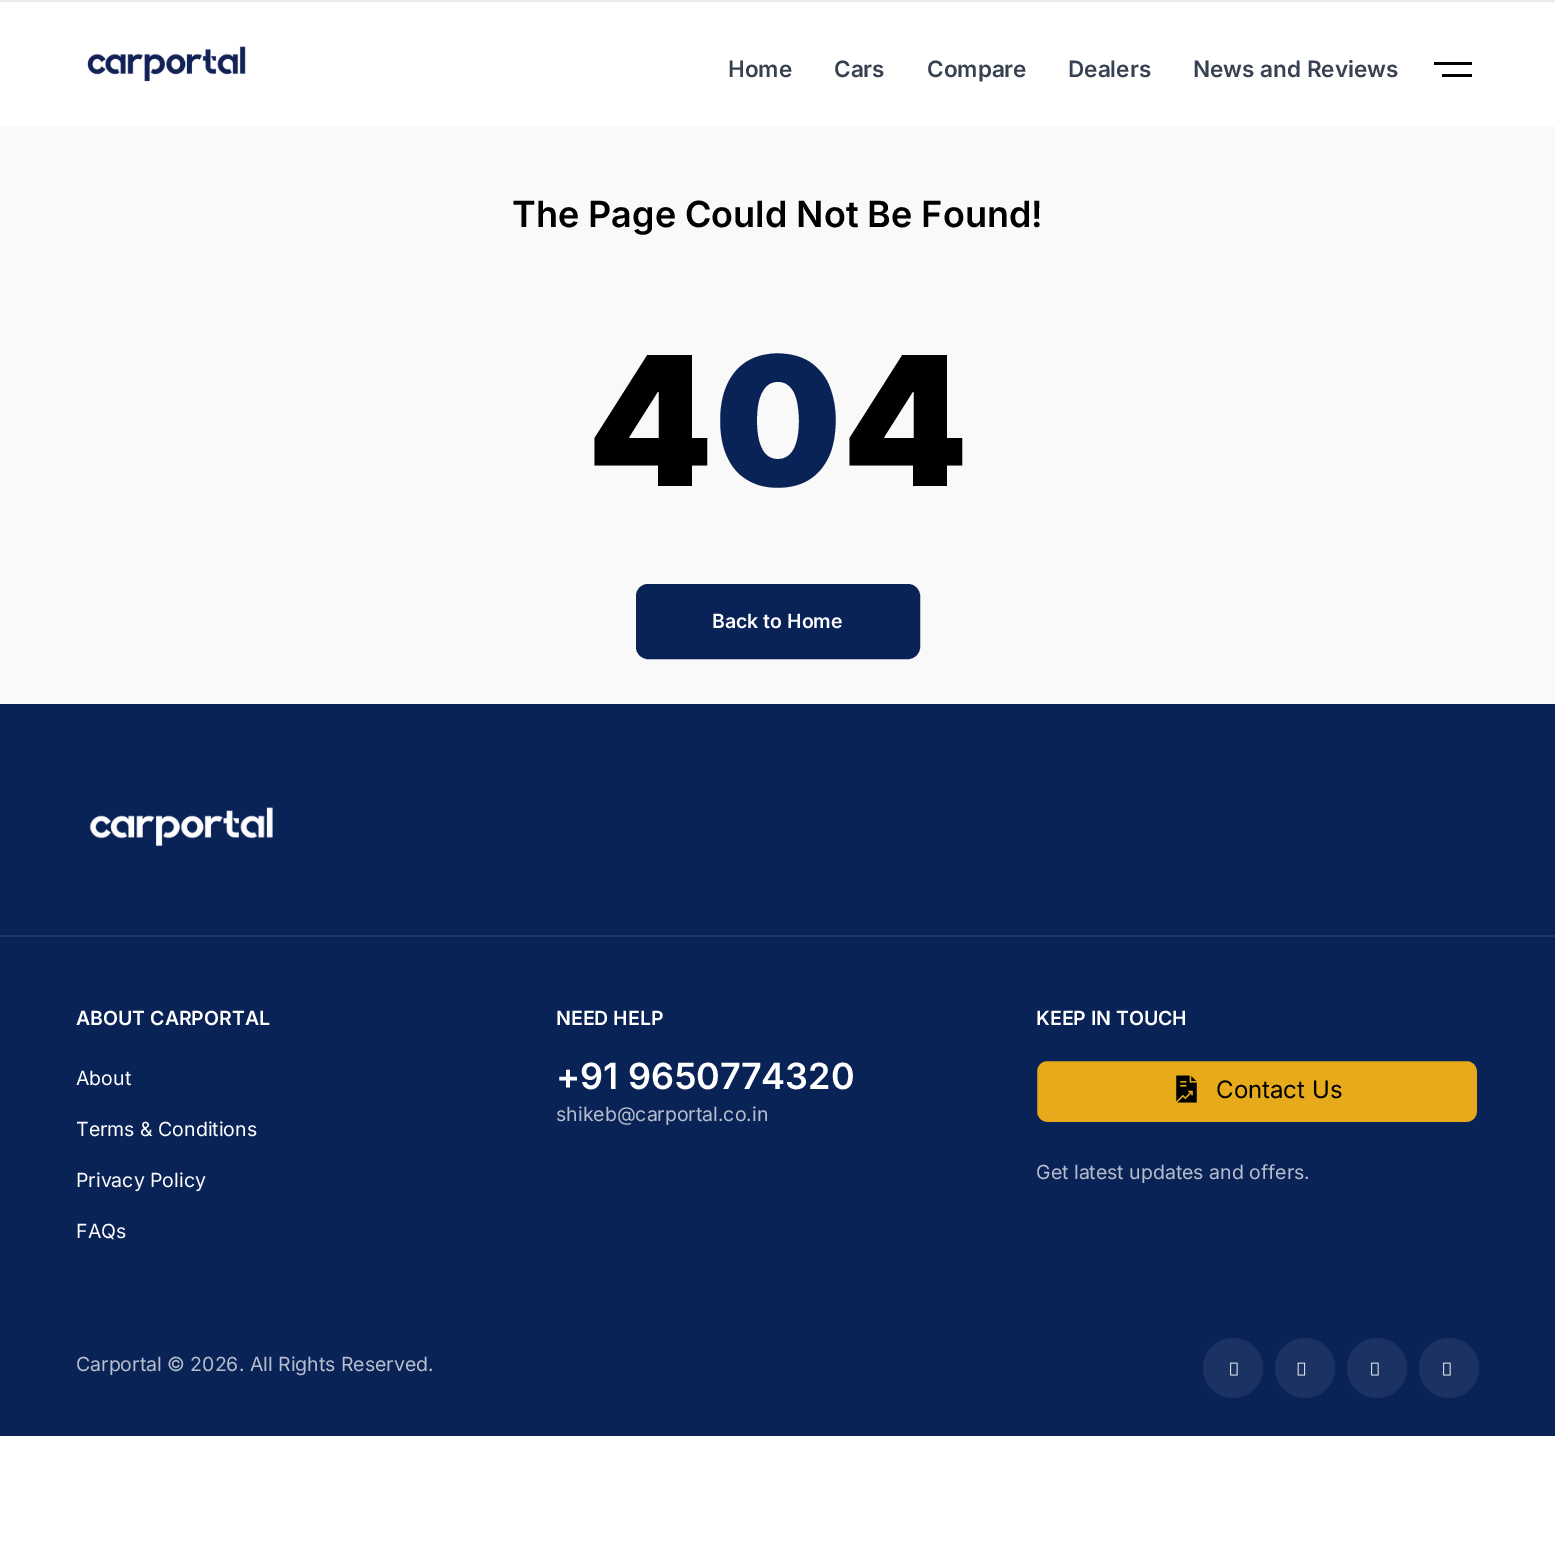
%!PS
<< /PageSize [1555 1544] >> setpagedevice
/rgb { dup -16 bitshift 255 div exch dup -8 bitshift 255 and 255 div exch 255 and 255 div setrgbcolor } def
/font { [ exch dup neg 0 0 3 -1 roll 0 0 ] selectfont } def
/text { moveto show } def
/circle { newpath 0 360 arc closepath } def
/roundrect { 5 dict begin { /r /h /w /y /x } { exch def } forall
  x r add y moveto x w add y 2 copy h add r arct x w add y h add x 1 index r arct
  x y h add x y r arct x y 2 copy exch w add exch r arct closepath end } def
/picture { 5 dict begin { /h /w /y /x /name } { exch def } forall
  gsave x y translate w h scale
  w h 8 [w 0 0 h 0 0] name (r) file false 3 colorimage grestore end } def
0 1544 translate 1 -1 scale
4 setmiterlimit
/s1 { /Inter-SemiBold 22.5 font 16#374151 rgb } def
/s2 { /Inter-SemiBold 36 font 16#000000 rgb } def
/s3 { /Inter-Black 180 font 16#000000 rgb } def
/s4 { /Inter-Black 180 font 16#0A2357 rgb } def
/s5 { /Inter-SemiBold 19.5 font 16#FFFFFF rgb } def
/s6 { /Inter-Regular 19.5 font 16#FFFFFF rgb } def
/s7 { /Inter-SemiBold 36 font 16#FFFFFF rgb } def
/s8 { /Inter-Regular 19.5 font 16#B6BDCD rgb } def
/s9 { /Inter-Regular 24 font 16#000000 rgb } def
16#FFFFFF rgb
0 0 1555 1544 rectfill
16#E8EBEF rgb
0 0 1555 2 rectfill
(pic1.raw) 87 46 159 36 picture
s1
(Home) 728 77 text
(Cars) 834 77 text
(Compare) 927 77 text
(Dealers) 1068 77 text
(News and Reviews) 1193 77 text
16#000000 rgb
1442 74 30 3 rectfill
1434 62 38 3 rectfill
16#F9F9F9 rgb
0 126 1555 578 rectfill
s2
(The Page Could Not Be Found!) 512 227 text
s3
(4) 587 486 text
s4
(0) 714 486 text
s3
(4) 842 486 text
16#0A2357 rgb
637 585 282 73 11 roundrect gsave fill grestore
2 setlinewidth
stroke
s5
(Back to Home) 712 628 text
16#0A2357 rgb
0 704 1555 732 rectfill
(pic2.raw) 89 807 184 40 picture
16#1F3666 rgb
0 935 1555 2 rectfill
s5
(ABOUT CARPORTAL) 76 1025 text
s6
(About) 76 1085 text
(Terms & Conditions) 76 1136 text
(Privacy Policy) 76 1187 text
(FAQs) 76 1238 text
s5
(NEED HELP) 556 1025 text
s7
(+91 9650774320) 556 1089 text
s8
(shikeb@carportal.co.in) 556 1121 text
s5
(KEEP IN TOUCH) 1036 1025 text
16#E6AA1B rgb
1036 1060 442 63 11 roundrect gsave fill grestore
16#0A2357 rgb
stroke
(pic3.raw) 1176 1075 21 28 picture
s9
(Contact Us) 1216 1098 text
s8
(Get latest updates and offers.) 1036 1179 text
(Carportal © 2026. All Rights Reserved.) 76 1371 text
16#1B3263 rgb
1233 1368 30 circle fill
(pic4.raw) 1230 1362 8 14 picture
1305 1368 30 circle fill
(pic5.raw) 1297 1362 9 14 picture
1377 1368 30 circle fill
(pic4.raw) 1371 1362 8 14 picture
1449 1368 30 circle fill
(pic4.raw) 1443 1362 8 14 picture
showpage
